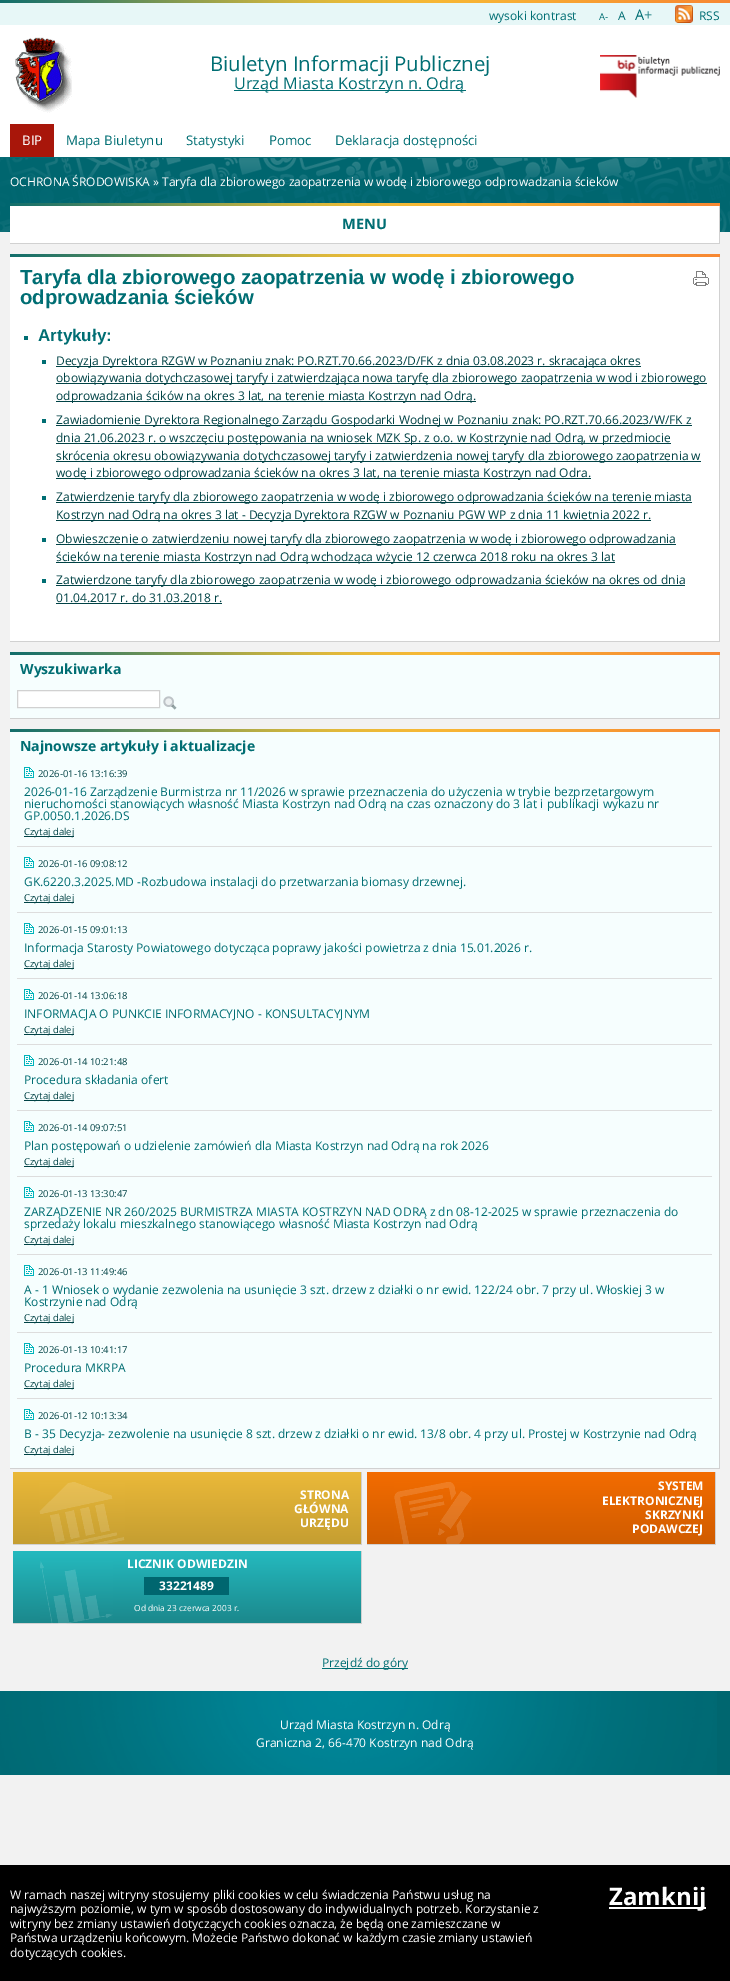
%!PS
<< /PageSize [730 1981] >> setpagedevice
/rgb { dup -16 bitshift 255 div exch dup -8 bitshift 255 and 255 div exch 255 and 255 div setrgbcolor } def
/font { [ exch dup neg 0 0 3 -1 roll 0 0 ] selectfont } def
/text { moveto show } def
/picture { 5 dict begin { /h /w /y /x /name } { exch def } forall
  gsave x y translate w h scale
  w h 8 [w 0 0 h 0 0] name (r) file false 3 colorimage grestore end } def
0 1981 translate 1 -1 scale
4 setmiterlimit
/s1 { /OpenSans-Regular 12 font 16#006E73 rgb } def
/s2 { /OpenSans-Regular 9.5 font 16#006E73 rgb } def
/s3 { /OpenSans-Regular 14.5 font 16#006E73 rgb } def
/s4 { /OpenSans-Regular 20.4 font 16#006E73 rgb } def
/s5 { /OpenSans-Regular 16.25 font 16#006E73 rgb } def
/s6 { /OpenSans-Regular 13.25 font 16#FFFFFF rgb } def
/s7 { /OpenSans-Regular 13.25 font 16#006E73 rgb } def
/s8 { /OpenSans-Regular 12 font 16#FFFFFF rgb } def
/s9 { /OpenSans-Bold 14.5 font 16#006E73 rgb } def
/s10 { /LiberationSans-Bold 20.4 font 16#006E73 rgb } def
/s11 { /LiberationSans-Bold 17 font 16#006E73 rgb } def
/s12 { /OpenSans-Regular 12 font 16#004245 rgb } def
/s13 { /OpenSans-Bold 14 font 16#006E73 rgb } def
/s14 { /OpenSans-Regular 9.5 font 16#004245 rgb } def
/s15 { /OpenSans-Bold 12 font 16#FFFFFF rgb } def
/s16 { /OpenSans-Regular 8.4 font 16#FFFFFF rgb } def
/s17 { /OpenSans-Bold 24 font 16#FFFFFF rgb } def
16#F2F2F2 rgb
0 0 730 1981 rectfill
16#FFFFFF rgb
0 25 730 132 rectfill
16#E7F7F7 rgb
0 3 730 22 rectfill
(pic1.raw) 0 0 730 3 picture
s1
(wysoki kontrast) 489 20 text
s2
(A-) 599 20 text
s1
(A) 618 20 text
s3
(A+) 635 20 text
(pic2.raw) 675 5 18 18 picture
s1
(RSS) 699 20 text
(pic3.raw) 15 37 57 76 picture
s4
(Biuletyn Informacji Publicznej) 210 71 text
234 90 232 1 rectfill
s5
(Urząd Miasta Kostrzyn n. Odrą) 234 89 text
(pic4.raw) 600 55 120 43 picture
16#A8160A rgb
10 124 44 33 rectfill
s6
(BIP) 22 145 text
s7
(Mapa Biuletynu) 66 145 text
(Statystyki) 186 145 text
(Pomoc) 269 145 text
(Deklaracja dostępności) 335 145 text
(pic5.raw) 0 157 730 75 picture
s8
(OCHRONA ŚRODOWISKA » Taryfa dla zbiorowego zaopatrzenia w wodę i zbiorowego odprowadzania ścieków) 10 186 text
(pic6.raw) 10 203 710 3 picture
10 206 709 37 rectfill
16#D1D1D1 rgb
719 206 1 38 rectfill
10 243 710 1 rectfill
s9
(MENU) 342 229 text
(pic6.raw) 10 254 710 3 picture
16#FFFFFF rgb
10 257 709 384 rectfill
16#D1D1D1 rgb
719 257 1 385 rectfill
10 641 710 1 rectfill
s10
(Taryfa dla zbiorowego zaopatrzenia w wodę i zbiorowego) 20 284 text
(odprowadzania ścieków) 20 304 text
(pic7.raw) 693 271 16 15 picture
24 336 4 4 rectfill
s11
(Artykuły:) 38 341 text
42 360 4 4 rectfill
16#004245 rgb
56 366 585 1 rectfill
s12
(Decyzja Dyrektora RZGW w Poznaniu znak: PO.RZT.70.66.2023/D/FK z dnia 03.08.2023 r. skracająca okres) 56 365 text
56 383 651 1 rectfill
(obowiązywania dotychczasowej taryfy i zatwierdzająca nowa taryfę dla zbiorowego zaopatrzenia w wod i zbiorowego) 56 382 text
56 401 420 1 rectfill
(odprowadzania ścików na okres 3 lat, na terenie miasta Kostrzyn nad Odrą.) 56 400 text
16#006E73 rgb
42 419 4 4 rectfill
16#004245 rgb
56 425 636 1 rectfill
(Zawiadomienie Dyrektora Regionalnego Zarządu Gospodarki Wodnej w Poznaniu znak: PO.RZT.70.66.2023/W/FK z) 56 424 text
56 443 615 1 rectfill
(dnia 21.06.2023 r. o wszczęciu postępowania na wniosek MZK Sp. z o.o. w Kostrzynie nad Odrą, w przedmiocie) 56 442 text
56 461 645 1 rectfill
(skrócenia okresu obowiązywania dotychczasowej taryfy i zatwierdzenia nowej taryfy dla zbiorowego zaopatrzenia w) 56 460 text
56 478 535 1 rectfill
(wodę i zbiorowego odprowadzania ścieków na okres 3 lat, na terenie miasta Kostrzyn nad Odra.) 56 477 text
16#006E73 rgb
42 496 4 4 rectfill
16#004245 rgb
56 502 636 1 rectfill
(Zatwierdzenie taryfy dla zbiorowego zaopatrzenia w wodę i zbiorowego odprowadzania ścieków na terenie miasta) 56 501 text
56 520 595 1 rectfill
(Kostrzyn nad Odrą na okres 3 lat - Decyzja Dyrektora RZGW w Poznaniu PGW WP z dnia 11 kwietnia 2022 r.) 56 519 text
16#006E73 rgb
42 538 4 4 rectfill
16#004245 rgb
56 544 620 1 rectfill
(Obwieszczenie o zatwierdzeniu nowej taryfy dla zbiorowego zaopatrzenia w wodę i zbiorowego odprowadzania) 56 543 text
56 562 559 1 rectfill
(ścieków na terenie miasta Kostrzyn nad Odrą wchodząca wżycie 12 czerwca 2018 roku na okres 3 lat) 56 561 text
16#006E73 rgb
42 579 4 4 rectfill
16#004245 rgb
56 585 629 1 rectfill
(Zatwierdzone taryfy dla zbiorowego zaopatrzenia w wodę i zbiorowego odprowadzania ścieków na okres od dnia) 56 584 text
(01.04.2017 r. do 31.03.2018 r.) 56 602 text
56 603 166 1 rectfill
(pic6.raw) 10 652 710 3 picture
16#F6FEFE rgb
10 655 709 63 rectfill
16#D1D1D1 rgb
719 655 1 64 rectfill
10 718 710 1 rectfill
s13
(Wyszukiwarka) 20 674 text
16#FFFFFF rgb
17.5 690.5 moveto 159.5 690.5 lineto 159.5 707.5 lineto 17.5 707.5 lineto closepath gsave fill grestore
16#D1D1D1 rgb
stroke
(pic8.raw) 163 696 14 14 picture
(pic6.raw) 10 729 710 3 picture
16#F6FEFE rgb
10 732 709 736 rectfill
16#D1D1D1 rgb
719 732 1 737 rectfill
10 1468 710 1 rectfill
s13
(Najnowsze artykuły i aktualizacje) 20 751 text
(pic9.raw) 24 767 10 11 picture
s14
(2026-01-16 13:16:39) 38 777 text
s1
(2026-01-16 Zarządzenie Burmistrza nr 11/2026 w sprawie przeznaczenia do użyczenia w trybie bezprzetargowym) 24 796 text
(nieruchomości stanowiących własność Miasta Kostrzyn nad Odrą na czas oznaczony do 3 lat i publikacji wykazu nr) 24 808 text
(GP.0050.1.2026.DS) 24 820 text
16#004245 rgb
24 836 50 1 rectfill
s14
(Czytaj dalej) 24 835 text
16#DDDDDD rgb
17 846 695 1 rectfill
(pic9.raw) 24 857 10 11 picture
s14
(2026-01-16 09:08:12) 38 867 text
s1
(GK.6220.3.2025.MD -Rozbudowa instalacji do przetwarzania biomasy drzewnej.) 24 886 text
16#004245 rgb
24 902 50 1 rectfill
s14
(Czytaj dalej) 24 901 text
16#DDDDDD rgb
17 912 695 1 rectfill
(pic9.raw) 24 923 10 11 picture
s14
(2026-01-15 09:01:13) 38 933 text
s1
(Informacja Starosty Powiatowego dotycząca poprawy jakości powietrza z dnia 15.01.2026 r.) 24 952 text
16#004245 rgb
24 968 50 1 rectfill
s14
(Czytaj dalej) 24 967 text
16#DDDDDD rgb
17 978 695 1 rectfill
(pic9.raw) 24 989 10 11 picture
s14
(2026-01-14 13:06:18) 38 999 text
s1
(INFORMACJA O PUNKCIE INFORMACYJNO - KONSULTACYJNYM) 24 1018 text
16#004245 rgb
24 1034 50 1 rectfill
s14
(Czytaj dalej) 24 1033 text
16#DDDDDD rgb
17 1044 695 1 rectfill
(pic9.raw) 24 1055 10 11 picture
s14
(2026-01-14 10:21:48) 38 1065 text
s1
(Procedura składania ofert) 24 1084 text
16#004245 rgb
24 1100 50 1 rectfill
s14
(Czytaj dalej) 24 1099 text
16#DDDDDD rgb
17 1110 695 1 rectfill
(pic9.raw) 24 1121 10 11 picture
s14
(2026-01-14 09:07:51) 38 1131 text
s1
(Plan postępowań o udzielenie zamówień dla Miasta Kostrzyn nad Odrą na rok 2026) 24 1150 text
16#004245 rgb
24 1166 50 1 rectfill
s14
(Czytaj dalej) 24 1165 text
16#DDDDDD rgb
17 1176 695 1 rectfill
(pic9.raw) 24 1187 10 11 picture
s14
(2026-01-13 13:30:47) 38 1197 text
s1
(ZARZĄDZENIE NR 260/2025 BURMISTRZA MIASTA KOSTRZYN NAD ODRĄ z dn 08-12-2025 w sprawie przeznaczenia do) 24 1216 text
(sprzedaży lokalu mieszkalnego stanowiącego własność Miasta Kostrzyn nad Odrą) 24 1228 text
16#004245 rgb
24 1244 50 1 rectfill
s14
(Czytaj dalej) 24 1243 text
16#DDDDDD rgb
17 1254 695 1 rectfill
(pic9.raw) 24 1265 10 11 picture
s14
(2026-01-13 11:49:46) 38 1275 text
s1
(A - 1 Wniosek o wydanie zezwolenia na usunięcie 3 szt. drzew z działki o nr ewid. 122/24 obr. 7 przy ul. Włoskiej 3 w) 24 1294 text
(Kostrzynie nad Odrą) 24 1306 text
16#004245 rgb
24 1322 50 1 rectfill
s14
(Czytaj dalej) 24 1321 text
16#DDDDDD rgb
17 1332 695 1 rectfill
(pic9.raw) 24 1343 10 11 picture
s14
(2026-01-13 10:41:17) 38 1353 text
s1
(Procedura MKRPA) 24 1372 text
16#004245 rgb
24 1388 50 1 rectfill
s14
(Czytaj dalej) 24 1387 text
16#DDDDDD rgb
17 1398 695 1 rectfill
(pic9.raw) 24 1409 10 11 picture
s14
(2026-01-12 10:13:34) 38 1419 text
s1
(B - 35 Decyzja- zezwolenie na usunięcie 8 szt. drzew z działki o nr ewid. 13/8 obr. 4 przy ul. Prostej w Kostrzynie nad Odrą) 24 1438 text
16#004245 rgb
24 1454 50 1 rectfill
s14
(Czytaj dalej) 24 1453 text
gsave 13 1472 moveto 361 1472 lineto 361 1544 lineto 13 1544 lineto closepath clip newpath
<< /ShadingType 2 /ColorSpace /DeviceRGB /Coords [187 1472 187 1544] /Extend [true true] /Function << /FunctionType 2 /Domain [0 1] /C0 [0.922 0.725 0.224] /C1 [0.773 0.62 0.192] /N 1 >> >> shfill grestore
16#D1D1D1 rgb
361 1472 1 73 rectfill
13 1544 349 1 rectfill
(pic10.raw) 39 1482 86 62 picture
s15
(STRONA) 300 1499 text
(GŁÓWNA) 294 1513 text
(URZĘDU) 300 1527 text
gsave 367 1472 moveto 715 1472 lineto 715 1544 lineto 367 1544 lineto closepath clip newpath
<< /ShadingType 2 /ColorSpace /DeviceRGB /Coords [541 1472 541 1544] /Extend [true true] /Function << /FunctionType 2 /Domain [0 1] /C0 [0.953 0.424 0] /C1 [0.816 0.361 0] /N 1 >> >> shfill grestore
16#D1D1D1 rgb
715 1472 1 73 rectfill
367 1544 349 1 rectfill
(pic11.raw) 394 1482 78 62 picture
s15
(SYSTEM) 658 1490 text
(ELEKTRONICZNEJ) 602 1505 text
(SKRZYNKI) 645 1519 text
(PODAWCZEJ) 632 1533 text
gsave 13 1551 moveto 361 1551 lineto 361 1623 lineto 13 1623 lineto closepath clip newpath
<< /ShadingType 2 /ColorSpace /DeviceRGB /Coords [187 1551 187 1623] /Extend [true true] /Function << /FunctionType 2 /Domain [0 1] /C0 [0.145 0.729 0.749] /C1 [0.106 0.533 0.549] /N 1 >> >> shfill grestore
16#D1D1D1 rgb
361 1551 1 73 rectfill
13 1623 349 1 rectfill
(pic12.raw) 40 1561 73 63 picture
s15
(LICZNIK ODWIEDZIN) 127 1568 text
16#00666F rgb
144 1577 85 18 rectfill
s15
(33221489) 159 1590 text
s16
(Od dnia 23 czerwca 2003 r.) 134 1611 text
16#006E73 rgb
322 1668 86 1 rectfill
s1
(Przejdź do góry) 322 1667 text
16#00666F rgb
0 1691 730 84 rectfill
(pic13.raw) 0 1691 717 84 picture
s8
(Urząd Miasta Kostrzyn n. Odrą) 280 1729 text
(Graniczna 2, 66-470 Kostrzyn nad Odrą) 256 1747 text
16#000000 rgb
0 1865 730 116 rectfill
s8
(W ramach naszej witryny stosujemy pliki cookies w celu świadczenia Państwu usług na) 10 1899 text
(najwyższym poziomie, w tym w sposób dostosowany do indywidualnych potrzeb. Korzystanie z) 10 1913 text
(witryny bez zmiany ustawień dotyczących cookies oznacza, że będą one zamieszczane w) 10 1928 text
(Państwa urządzeniu końcowym. Możecie Państwo dokonać w każdym czasie zmiany ustawień) 10 1942 text
(dotyczących cookies.) 10 1957 text
609 1907 97 2 rectfill
s17
(Zamknij) 609 1905 text
showpage
